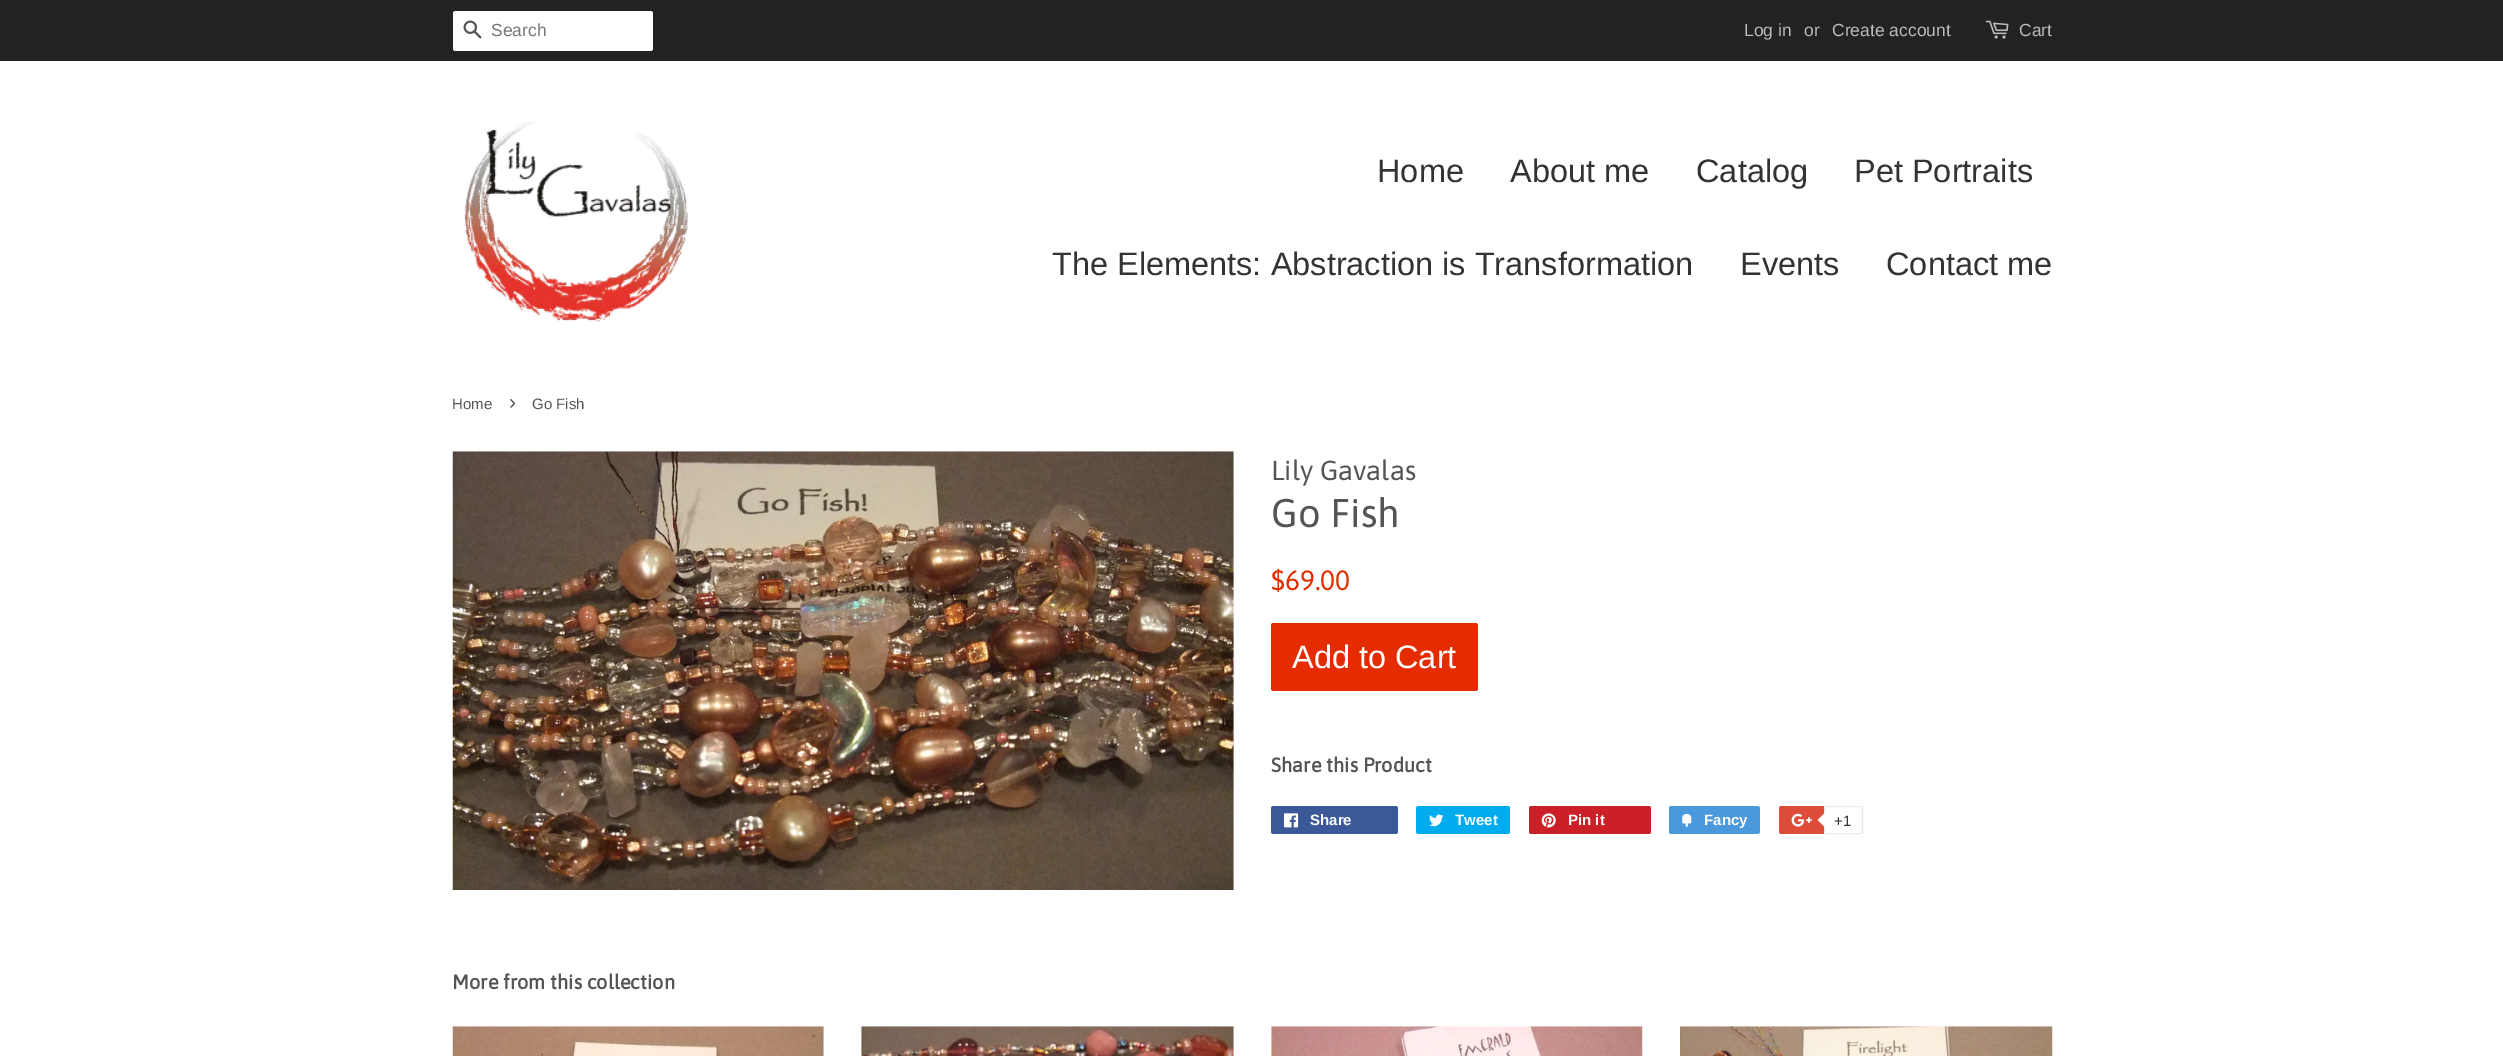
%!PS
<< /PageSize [2503 1056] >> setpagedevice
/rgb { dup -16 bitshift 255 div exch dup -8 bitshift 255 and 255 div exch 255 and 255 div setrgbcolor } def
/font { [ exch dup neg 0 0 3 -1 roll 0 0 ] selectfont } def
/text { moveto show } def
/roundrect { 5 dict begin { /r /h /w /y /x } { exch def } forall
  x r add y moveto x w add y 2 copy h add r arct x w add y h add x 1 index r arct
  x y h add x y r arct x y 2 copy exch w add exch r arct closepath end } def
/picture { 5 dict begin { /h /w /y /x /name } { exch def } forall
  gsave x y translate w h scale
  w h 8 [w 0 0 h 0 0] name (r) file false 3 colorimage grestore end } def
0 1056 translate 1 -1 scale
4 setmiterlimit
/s1 { /LiberationSans-Regular 17.5 font 16#757575 rgb } def
/s2 { /LiberationSans-Regular 17.5 font 16#BBBBBB rgb } def
/s3 { /LiberationSans-Regular 32.5 font 16#333333 rgb } def
/s4 { /LiberationSans-Regular 15 font 16#555555 rgb } def
/s5 { /LiberationSans-Regular 21 font 16#555555 rgb } def
/s6 { /Asap-Regular 27.5 font 16#555555 rgb } def
/s7 { /Asap-Regular 40 font 16#555555 rgb } def
/s8 { /Asap-Regular 28 font 16#E42C00 rgb } def
/s9 { /LiberationSans-Regular 32.5 font 16#FFFFFF rgb } def
/s10 { /Asap-Bold 20 font 16#555555 rgb } def
/s11 { /LiberationSans-Bold 15 font 16#FFFFFF rgb } def
/s12 { /LiberationSans-Regular 15 font 16#333333 rgb } def
16#FFFFFF rgb
0 0 2503 1056 rectfill
16#222222 rgb
0 0 2503 61 rectfill
16#FFFFFF rgb
453 11 200 40 2.5 roundrect fill
(pic1.raw) 463 20 19 19 picture
s1
(Search) 491 36 text
s2
(Log in) 1744 36 text
(or) 1804 36 text
(Create account) 1832 36 text
(pic2.raw) 1985 20 24 19 picture
(Cart) 2019 36 text
(pic3.raw) 464 119 224 203 picture
s3
(Home) 1377 182 text
(About me) 1510 182 text
(Catalog) 1696 182 text
(Pet Portraits) 1854 182 text
(The Elements: Abstraction is Transformation) 1052 275 text
(Events) 1740 275 text
(Contact me) 1886 275 text
s4
(Home) 452 409 text
s5
(›) 509 409 text
s4
(Go Fish) 532 409 text
(pic4.raw) 452 451 782 439 picture
s6
(Lily Gavalas) 1271 480 text
s7
(Go Fish) 1271 527 text
s8
($69.00) 1271 590 text
1271 623 207 68 2.5 roundrect fill
s9
(Add to Cart) 1292 668 text
s10
(Share this Product) 1271 772 text
16#3B5998 rgb
1271 806 127 28 2.5 roundrect fill
(pic5.raw) 1284 813 15 15 picture
s11
(Share) 1310 825 text
16#00ACED rgb
1416 806 94 28 2.5 roundrect fill
(pic6.raw) 1429 814 15 13 picture
s11
(Tweet) 1455 825 text
16#CB2027 rgb
1529 806 122 28 2.5 roundrect fill
(pic7.raw) 1541 813 15 15 picture
s11
(Pin it) 1568 825 text
16#4999DC rgb
1669 806 91 28 2.5 roundrect fill
(pic8.raw) 1682 813 10 14 picture
s11
(Fancy) 1704 825 text
16#DD4B39 rgb
1779 806 81 28 2.5 roundrect fill
(pic9.raw) 1791 813 21 14 picture
16#FFFFFF rgb
1824.5 806.5 moveto 1860.5 806.5 lineto 1861.5 806.5 1862.5 807.5 1862.5 808.5 curveto 1862.5 831.5 lineto 1862.5 832.5 1861.5 833.5 1860.5 833.5 curveto 1824.5 833.5 lineto closepath gsave fill grestore
16#ECECEC rgb
stroke
1825 812.5 moveto 1825 827.5 lineto 1817.5 820 lineto closepath fill
16#FFFFFF rgb
1826 812.5 moveto 1826 827.5 lineto 1819 820 lineto closepath fill
s12
(+1) 1834 826 text
s10
(More from this collection) 452 989 text
(pic10.raw) 452 1026 372 30 picture
(pic11.raw) 861 1026 373 30 picture
(pic12.raw) 1271 1026 372 30 picture
(pic13.raw) 1680 1026 373 30 picture
showpage
